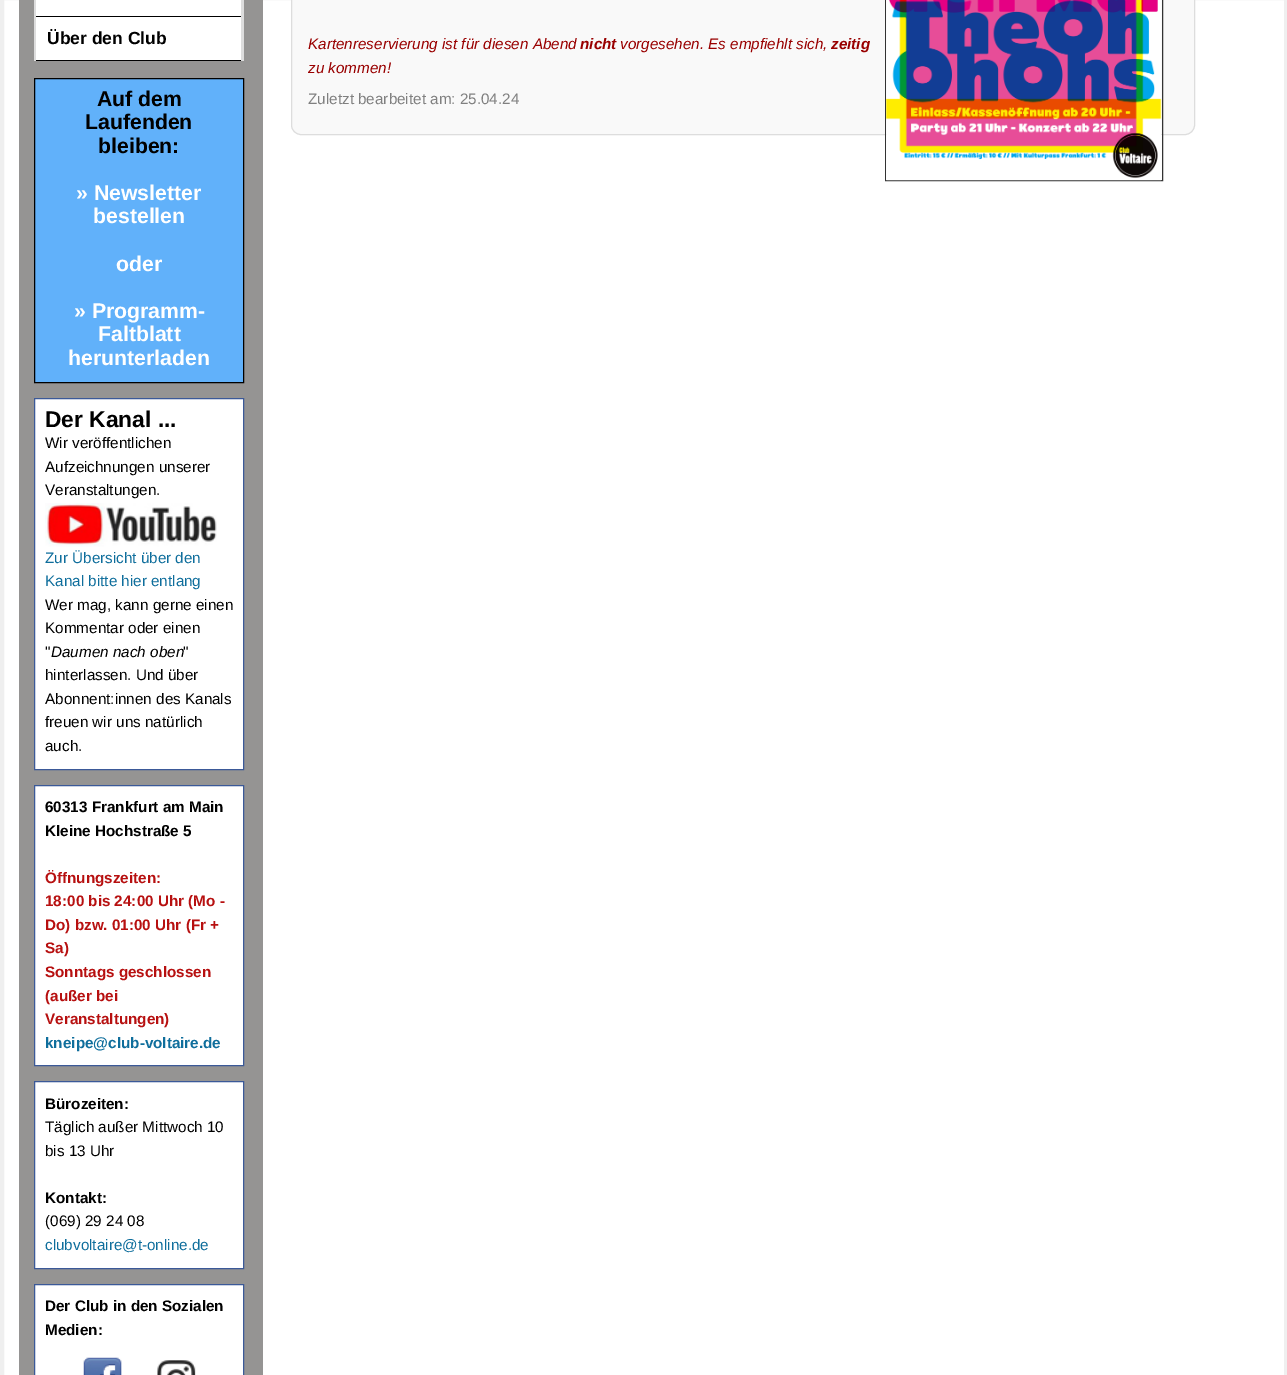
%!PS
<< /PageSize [1287 1375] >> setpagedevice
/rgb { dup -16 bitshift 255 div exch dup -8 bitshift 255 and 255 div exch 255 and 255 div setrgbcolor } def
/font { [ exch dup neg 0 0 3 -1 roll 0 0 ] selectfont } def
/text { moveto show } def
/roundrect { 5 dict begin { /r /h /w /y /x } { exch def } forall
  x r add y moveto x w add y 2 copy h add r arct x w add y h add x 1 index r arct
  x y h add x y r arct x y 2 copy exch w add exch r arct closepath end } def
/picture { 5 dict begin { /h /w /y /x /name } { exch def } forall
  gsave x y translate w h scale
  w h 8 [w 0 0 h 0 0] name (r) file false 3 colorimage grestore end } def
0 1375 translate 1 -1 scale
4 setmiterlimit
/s1 { /LiberationSans-Bold 17.5 font 16#000000 rgb } def
/s2 { /LiberationSans-Bold 21.25 font 16#000000 rgb } def
/s3 { /LiberationSans-Bold 21.25 font 16#FFFFFF rgb } def
/s4 { /LiberationSans-Bold 22.75 font 16#000000 rgb } def
/s5 { /LiberationSans-Regular 15.25 font 16#000000 rgb } def
/s6 { /LiberationSans-Regular 15.25 font 16#0F6E9C rgb } def
/s7 { /LiberationSans-Italic 15.25 font 16#000000 rgb } def
/s8 { /LiberationSans-Bold 15.25 font 16#000000 rgb } def
/s9 { /LiberationSans-Bold 15.25 font 16#B71010 rgb } def
/s10 { /LiberationSans-Bold 15.25 font 16#0F6E9C rgb } def
/s11 { /LiberationSans-Italic 15.25 font 16#990000 rgb } def
/s12 { /LiberationSans-BoldItalic 15.25 font 16#990000 rgb } def
/s13 { /LiberationSans-Regular 15.25 font 16#808080 rgb } def
16#FFFFFF rgb
0 0 1287 1375 rectfill
16#EFEFEF rgb
4 setlinewidth
2 -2 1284 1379 rectstroke
16#959493 rgb
19 0 244 1375 rectfill
16#DDDDDD rgb
241 0 3 61 rectfill
34 0 2 61 rectfill
16#FFFFFF rgb
36 0 205 60 rectfill
16#000000 rgb
36 16 205 1 rectfill
36 60 205 1 rectfill
s1
(Über den Club) 47 44 text
16#61B1FA rgb
34.5 78.5 moveto 243.5 78.5 lineto 243.5 382.5 lineto 34.5 382.5 lineto closepath gsave fill grestore
16#000000 rgb
1 setlinewidth
stroke
s2
(Auf dem) 97 106 text
(Laufenden) 85 129 text
(bleiben:) 98 153 text
s3
(» Newsletter) 76 200 text
(bestellen) 93 223 text
(oder) 116 271 text
(» Programm-) 74 318 text
(Faltblatt) 98 341 text
(herunterladen) 68 365 text
34.5 398.5 moveto 243.5 398.5 lineto 243.5 769.5 lineto 34.5 769.5 lineto closepath gsave fill grestore
16#3B5998 rgb
stroke
s4
(Der Kanal ...) 45 427 text
s5
(Wir veröffentlichen) 45 448 text
(Aufzeichnungen unserer) 45 472 text
(Veranstaltungen.) 45 495 text
(pic1.raw) 45 503 172 44 picture
s6
(Zur Übersicht über den) 45 563 text
(Kanal bitte hier entlang) 45 586 text
s5
(Wer mag, kann gerne einen) 45 610 text
(Kommentar oder einen) 45 633 text
(") 45 657 text
s7
(Daumen nach oben) 51 657 text
s5
(") 183 657 text
(hinterlassen. Und über) 45 680 text
(Abonnent:innen des Kanals) 45 704 text
(freuen wir uns natürlich) 45 727 text
(auch.) 45 751 text
16#FFFFFF rgb
34.5 785.5 moveto 243.5 785.5 lineto 243.5 1065.5 lineto 34.5 1065.5 lineto closepath gsave fill grestore
16#3B5998 rgb
stroke
s8
(60313 Frankfurt am Main) 45 812 text
(Kleine Hochstraße 5) 45 836 text
s9
(Öffnungszeiten:) 45 883 text
(18:00 bis 24:00 Uhr \(Mo -) 45 906 text
(Do\) bzw. 01:00 Uhr \(Fr +) 45 930 text
(Sa\)) 45 953 text
(Sonntags geschlossen) 45 977 text
(\(außer bei) 45 1001 text
(Veranstaltungen\)) 45 1024 text
s10
(kneipe@club-voltaire.de) 45 1048 text
16#FFFFFF rgb
34.5 1081.5 moveto 243.5 1081.5 lineto 243.5 1268.5 lineto 34.5 1268.5 lineto closepath gsave fill grestore
16#3B5998 rgb
stroke
s8
(Bürozeiten:) 45 1109 text
s5
(Täglich außer Mittwoch 10) 45 1132 text
(bis 13 Uhr) 45 1156 text
s8
(Kontakt:) 45 1203 text
s5
(\(069\) 29 24 08) 45 1226 text
s6
(clubvoltaire@t-online.de) 45 1250 text
16#FFFFFF rgb
34.5 1284.5 moveto 243.5 1284.5 lineto 243.5 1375.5 lineto 34.5 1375.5 lineto closepath gsave fill grestore
16#3B5998 rgb
stroke
s8
(Der Club in den Sozialen) 45 1311 text
(Medien:) 45 1335 text
(pic2.raw) 83 1357 39 18 picture
(pic3.raw) 157 1360 39 15 picture
16#F9F9F9 rgb
291.5 -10.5 903 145 9.5 roundrect gsave fill grestore
16#DDDDDD rgb
stroke
s11
(Kartenreservierung ist für diesen Abend) 308 49 text
s12
(nicht) 580 49 text
s11
(vorgesehen. Es empfiehlt sich,) 620 49 text
s12
(zeitig) 831 49 text
16#333333 rgb
885.5 -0.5 277 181 rectstroke
(pic4.raw) 886 0 276 181 picture
s11
(zu kommen!) 308 73 text
s13
(Zuletzt bearbeitet am: 25.04.24) 308 104 text
showpage
